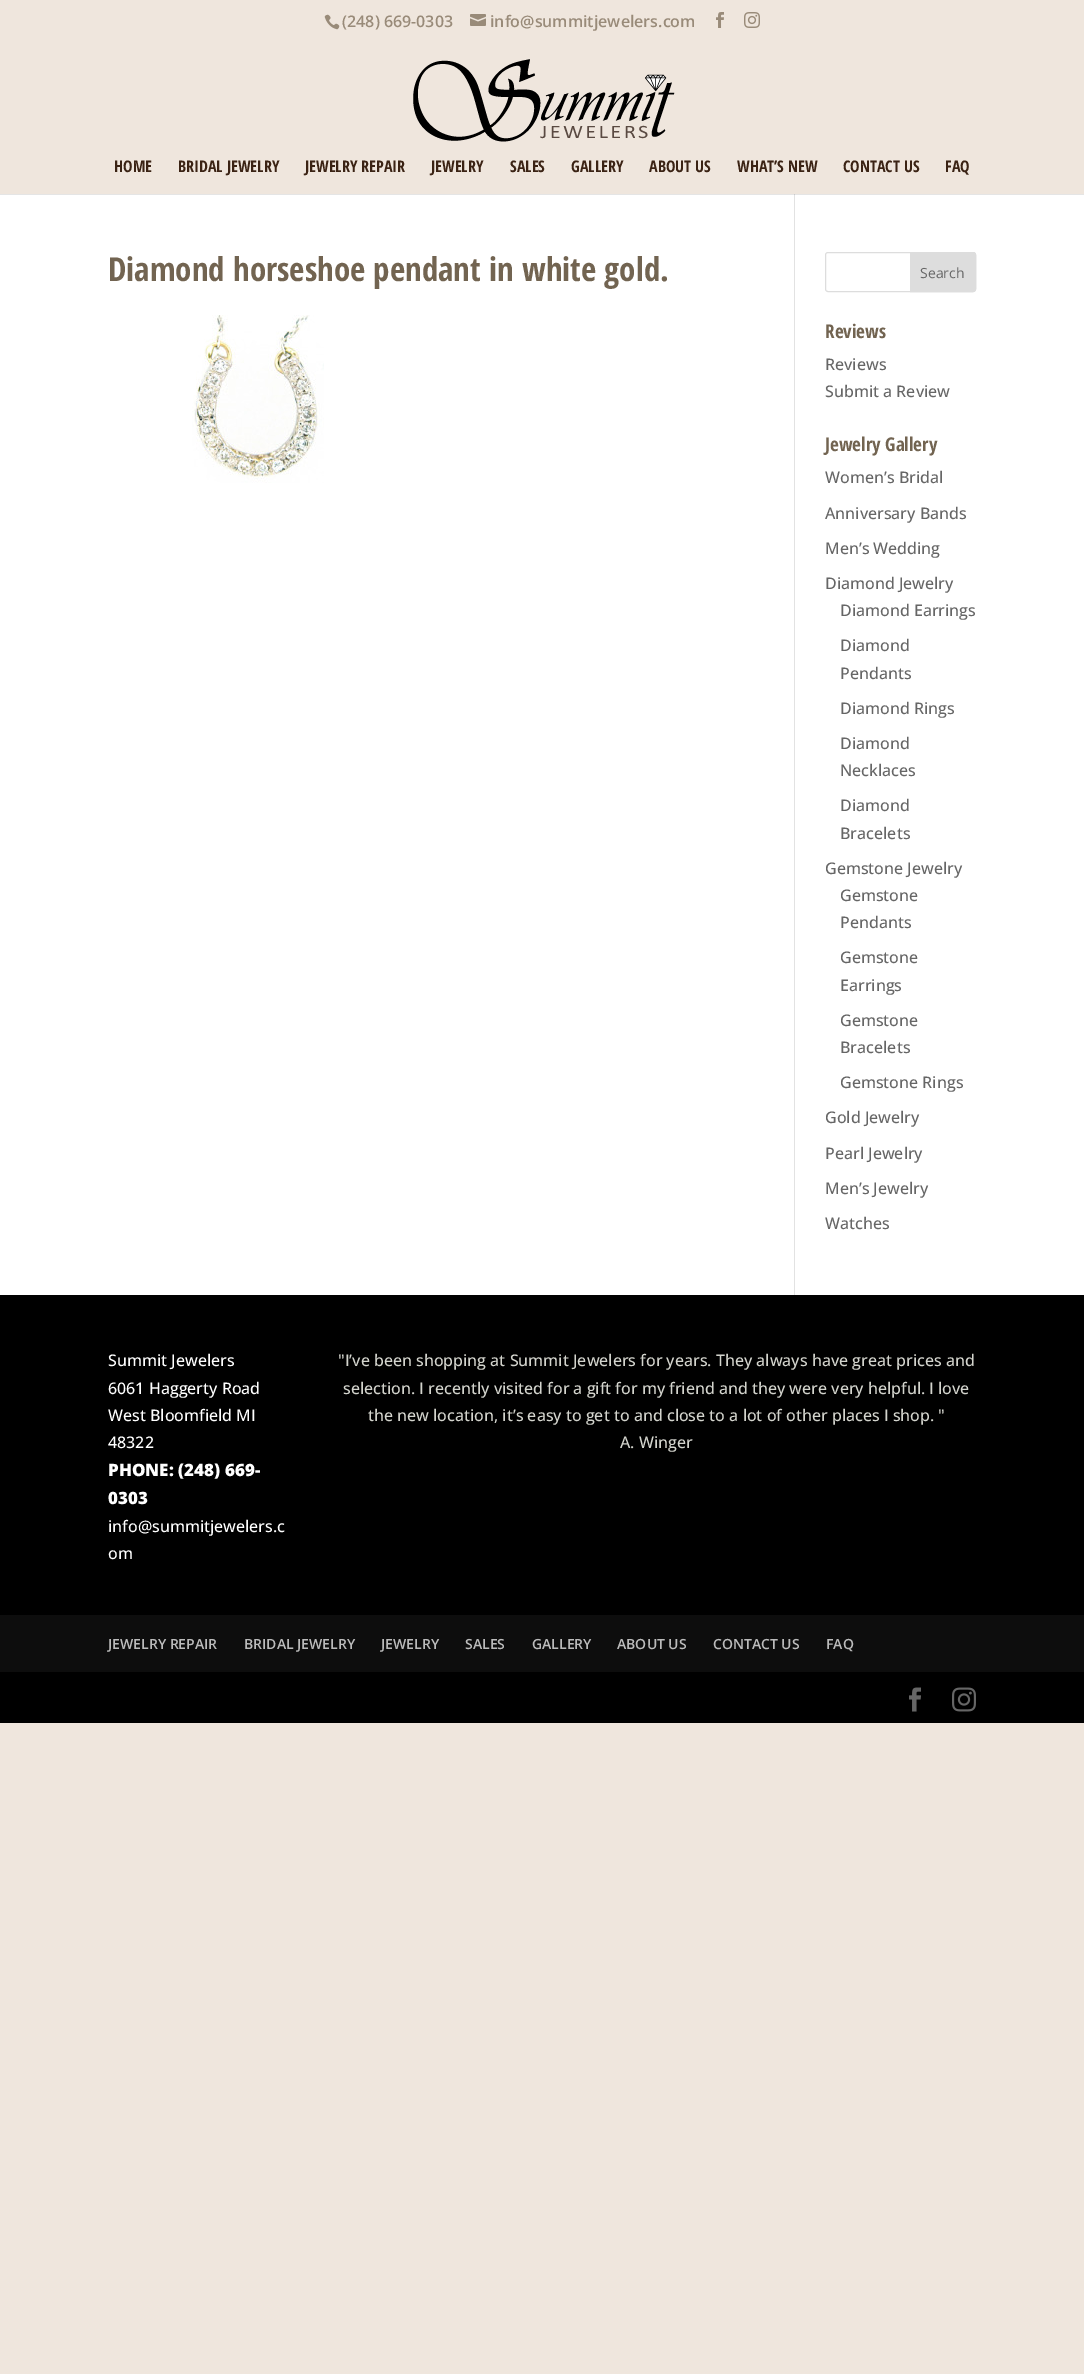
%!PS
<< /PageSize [1084 2374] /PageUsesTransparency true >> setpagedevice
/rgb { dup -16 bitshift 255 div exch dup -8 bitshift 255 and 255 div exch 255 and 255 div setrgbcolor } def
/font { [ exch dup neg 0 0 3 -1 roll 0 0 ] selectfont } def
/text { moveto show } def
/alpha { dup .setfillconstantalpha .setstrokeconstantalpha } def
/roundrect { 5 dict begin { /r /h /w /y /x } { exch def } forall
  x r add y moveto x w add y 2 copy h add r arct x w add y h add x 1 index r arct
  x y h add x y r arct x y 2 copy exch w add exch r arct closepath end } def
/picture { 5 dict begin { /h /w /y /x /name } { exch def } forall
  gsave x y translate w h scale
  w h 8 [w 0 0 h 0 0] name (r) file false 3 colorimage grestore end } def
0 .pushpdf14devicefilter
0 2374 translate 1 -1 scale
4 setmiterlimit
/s1 { /OpenSans-SemiBold 16 font 16#998B79 rgb } def
/s2 { /OpenSansCondensed-Bold 16 font 16#3B2314 rgb } def
/s3 { /OpenSansCondensed-Bold 33 font 16#726451 rgb } def
/s4 { /OpenSans-Regular 14 font 16#666666 rgb } def
/s5 { /OpenSansCondensed-Bold 19 font 16#726451 rgb } def
/s6 { /OpenSans-Medium 16 font 16#666666 rgb } def
/s7 { /OpenSans-Medium 16 font 16#FFFFFF rgb } def
/s8 { /OpenSans-ExtraBold 17 font 16#FFFFFF rgb } def
/s9 { /OpenSans-Medium 16 font 16#D3D4CD rgb } def
/s10 { /OpenSans-SemiBold 14 font 16#BBBBBB rgb } def
16#EFE6DD rgb
0 0 1084 2374 rectfill
(pic1.raw) 324 14 16 16 picture
s1
(\(248\) 669-0303) 342 27 text
(pic2.raw) 470 14 16 12 picture
(info@summitjewelers.com) 490 27 text
(pic3.raw) 716 12 8 16 picture
(pic4.raw) 744 12 16 16 picture
16#FFFFFF rgb
0 194 1084 1101 rectfill
16#E2E2E2 rgb
794 194 1 1101 rectfill
0.1 alpha
16#000000 rgb
0 194 1084 1 rectfill
1 alpha
(pic5.raw) 413 59 262 83 picture
s2
(HOME) 114 172 text
(BRIDAL JEWELRY) 178 172 text
(JEWELRY REPAIR) 305 172 text
(JEWELRY) 431 172 text
(SALES) 510 172 text
(GALLERY) 571 172 text
(ABOUT US) 649 172 text
(WHAT’S NEW) 737 172 text
(CONTACT US) 843 172 text
(FAQ) 945 172 text
s3
(Diamond horseshoe pendant in white gold.) 108 281 text
(pic6.raw) 192 315 132 168 picture
16#DDDDDD rgb
825.5 252.5 150 39 2.5 roundrect stroke
910.5 252.5 moveto 973 252.5 lineto 974.5 252.5 975.5 253.5 975.5 255 curveto 975.5 289 lineto 975.5 290.5 974.5 291.5 973 291.5 curveto 910.5 291.5 lineto closepath gsave fill grestore
stroke
s4
(Search) 920 278 text
s5
(Reviews) 825 338 text
s6
(Reviews) 825 370 text
(Submit a Review) 825 397 text
s5
(Jewelry Gallery) 825 451 text
s6
(Women’s Bridal) 825 483 text
(Anniversary Bands) 825 519 text
(Men’s Wedding) 825 554 text
(Diamond Jewelry) 825 589 text
(Diamond Earrings) 840 616 text
(Diamond) 840 651 text
(Pendants) 840 679 text
(Diamond Rings) 840 714 text
(Diamond) 840 749 text
(Necklaces) 840 776 text
(Diamond) 840 811 text
(Bracelets) 840 839 text
(Gemstone Jewelry) 825 874 text
(Gemstone) 840 901 text
(Pendants) 840 928 text
(Gemstone) 840 963 text
(Earrings) 840 991 text
(Gemstone) 840 1026 text
(Bracelets) 840 1053 text
(Gemstone Rings) 840 1088 text
(Gold Jewelry) 825 1123 text
(Pearl Jewelry) 825 1159 text
(Men’s Jewelry) 825 1194 text
(Watches) 825 1229 text
16#000000 rgb
0 1295 1084 428 rectfill
s7
(Summit Jewelers) 108 1366 text
(6061 Haggerty Road) 108 1394 text
(West Bloomfield MI) 108 1421 text
(48322) 108 1448 text
s8
(PHONE: \(248\) 669-) 108 1476 text
(0303) 108 1504 text
s7
(info@summitjewelers.c) 108 1532 text
(om) 108 1559 text
s9
("I’ve been shopping at Summit Jewelers for years. They always have great prices and) 338 1366 text
(selection. I recently visited for a gift for my friend and they were very helpful. I love) 343 1394 text
(the new location, it’s easy to get to and close to a lot of other places I shop. ") 368 1421 text
(A. Winger) 620 1448 text
16#0D0D0D rgb
0 1615 1084 57 rectfill
s10
(JEWELRY REPAIR) 108 1649 text
(BRIDAL JEWELRY) 244 1649 text
(JEWELRY) 381 1649 text
(SALES) 465 1649 text
(GALLERY) 532 1649 text
(ABOUT US) 617 1649 text
(CONTACT US) 713 1649 text
(FAQ) 826 1649 text
(pic7.raw) 909 1687 12 25 picture
(pic8.raw) 952 1687 24 25 picture
.poppdf14devicefilter showpage
